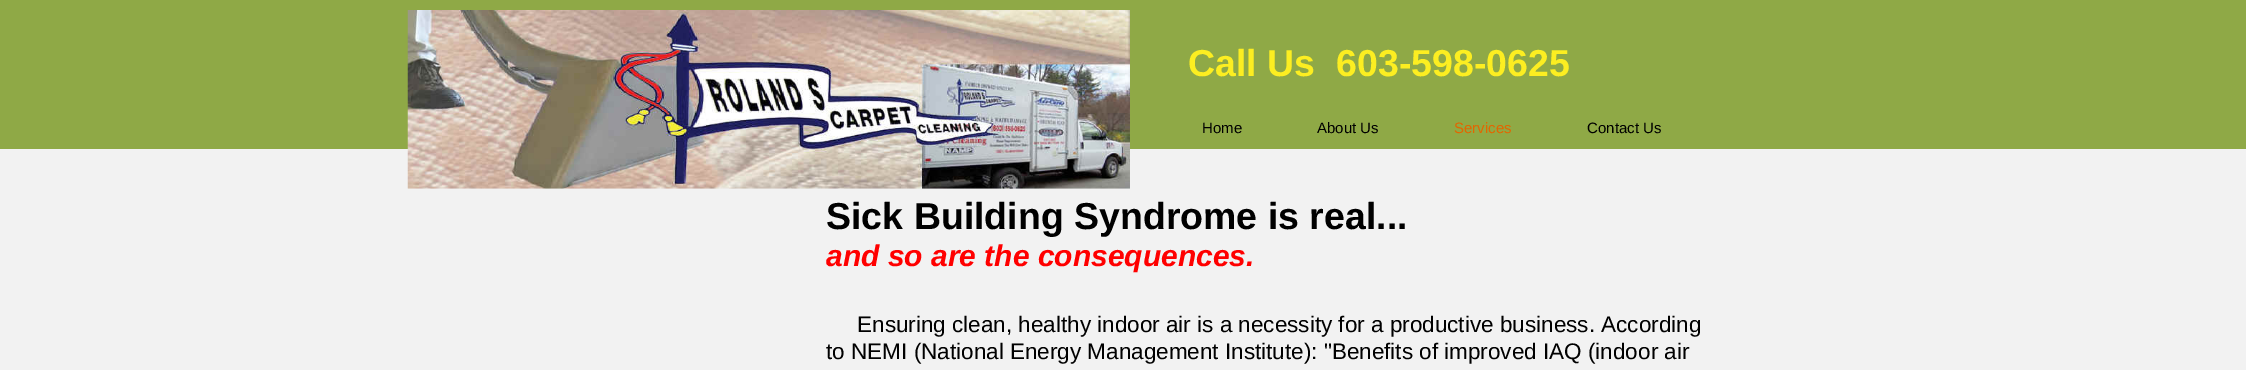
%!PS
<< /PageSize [2246 370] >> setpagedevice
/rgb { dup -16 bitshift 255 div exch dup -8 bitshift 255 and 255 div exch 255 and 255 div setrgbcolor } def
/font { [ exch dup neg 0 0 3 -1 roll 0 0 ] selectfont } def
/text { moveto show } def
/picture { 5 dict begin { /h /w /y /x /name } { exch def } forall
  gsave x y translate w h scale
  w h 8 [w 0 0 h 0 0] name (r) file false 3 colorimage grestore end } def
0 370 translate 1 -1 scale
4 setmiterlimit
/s1 { /LiberationSans-Bold 37.5 font 16#FCEE21 rgb } def
/s2 { /LiberationSans-Regular 15 font 16#000000 rgb } def
/s3 { /LiberationSans-Regular 15 font 16#E36600 rgb } def
/s4 { /LiberationSans-Bold 37.5 font 16#000000 rgb } def
/s5 { /LiberationSans-BoldItalic 30 font 16#FF0000 rgb } def
/s6 { /LiberationSans-Regular 22.5 font 16#000000 rgb } def
16#F2F2F2 rgb
0 0 2246 370 rectfill
16#8FA946 rgb
0 0 2246 149 rectfill
(pic1.raw) 407 10 723 179 picture
s1
(Call Us  603-598-0625) 1188 76 text
s2
(Home) 1202 133 text
(About Us) 1317 133 text
s3
(Services) 1454 133 text
s2
(Contact Us) 1587 133 text
s4
(Sick Building Syndrome is real...) 826 229 text
s5
(and so are the consequences.) 826 266 text
s6
(Ensuring clean, healthy indoor air is a necessity for a productive business. According) 857 332 text
(to NEMI \(National Energy Management Institute\): "Benefits of improved IAQ \(indoor air) 826 359 text
showpage
